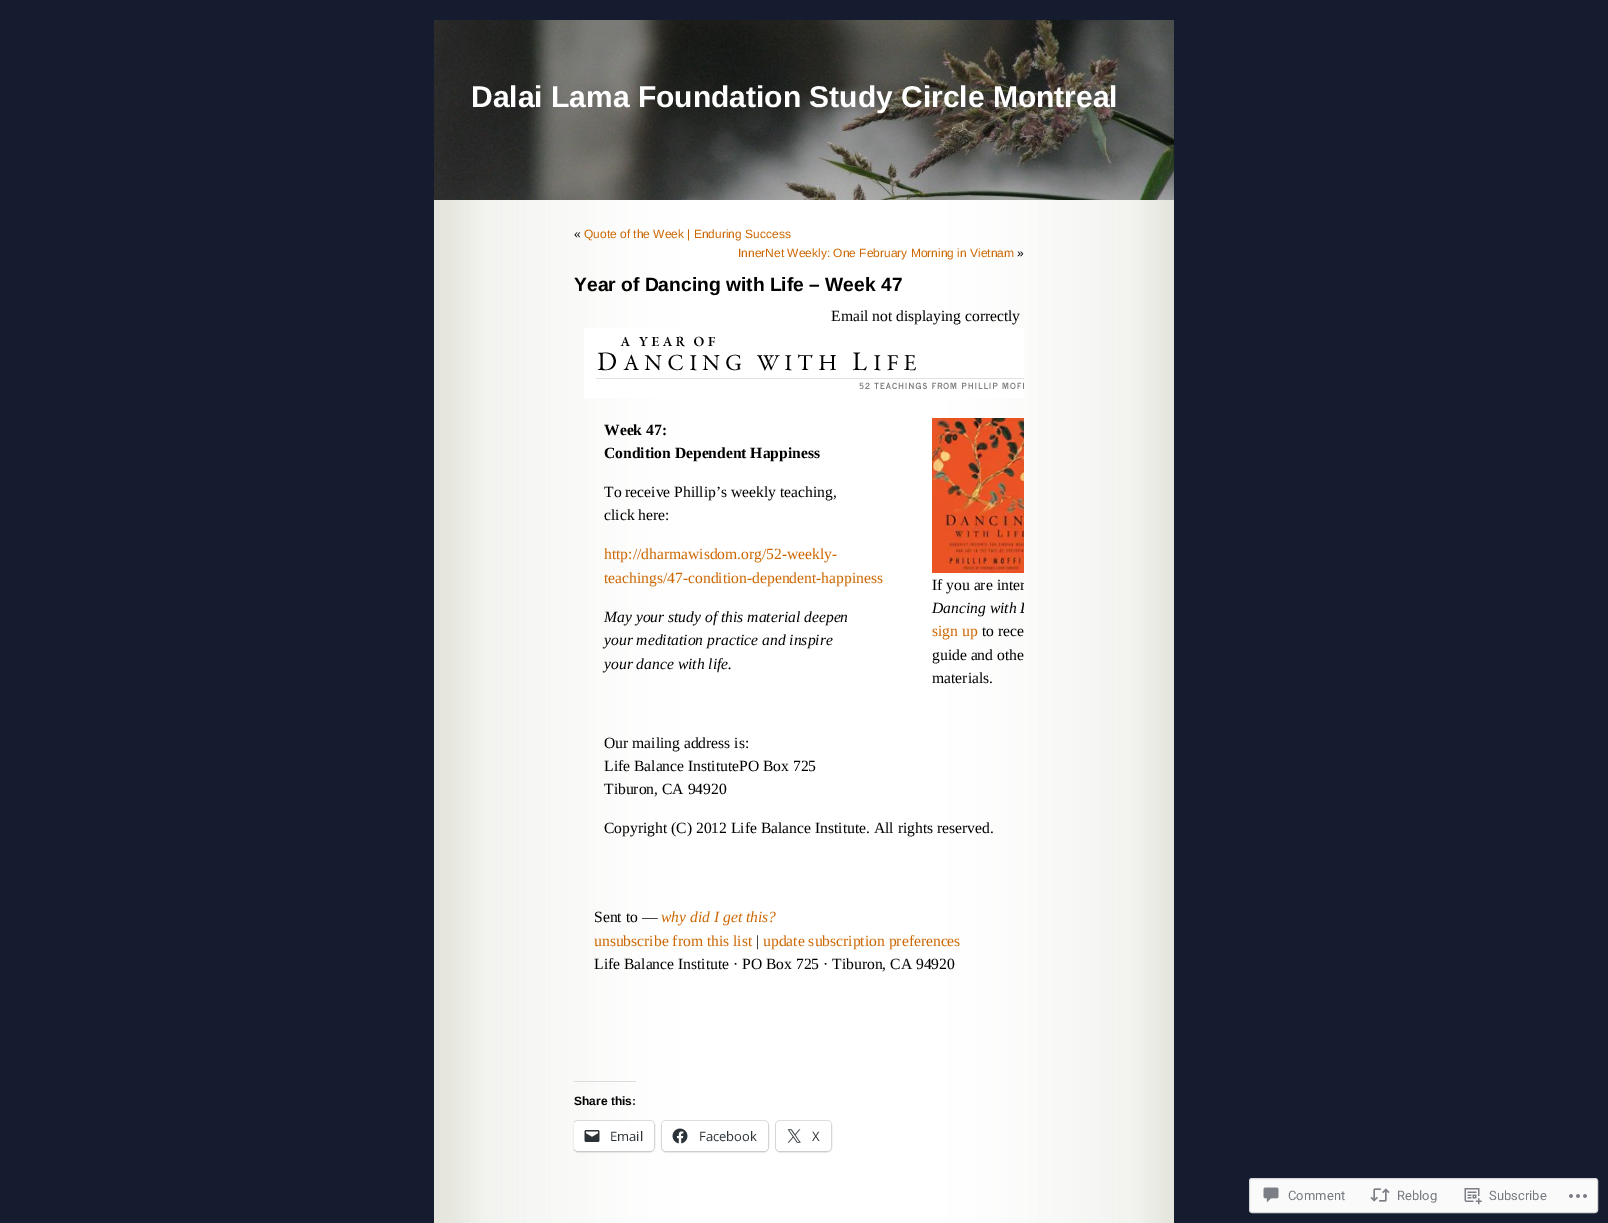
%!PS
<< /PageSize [1608 1223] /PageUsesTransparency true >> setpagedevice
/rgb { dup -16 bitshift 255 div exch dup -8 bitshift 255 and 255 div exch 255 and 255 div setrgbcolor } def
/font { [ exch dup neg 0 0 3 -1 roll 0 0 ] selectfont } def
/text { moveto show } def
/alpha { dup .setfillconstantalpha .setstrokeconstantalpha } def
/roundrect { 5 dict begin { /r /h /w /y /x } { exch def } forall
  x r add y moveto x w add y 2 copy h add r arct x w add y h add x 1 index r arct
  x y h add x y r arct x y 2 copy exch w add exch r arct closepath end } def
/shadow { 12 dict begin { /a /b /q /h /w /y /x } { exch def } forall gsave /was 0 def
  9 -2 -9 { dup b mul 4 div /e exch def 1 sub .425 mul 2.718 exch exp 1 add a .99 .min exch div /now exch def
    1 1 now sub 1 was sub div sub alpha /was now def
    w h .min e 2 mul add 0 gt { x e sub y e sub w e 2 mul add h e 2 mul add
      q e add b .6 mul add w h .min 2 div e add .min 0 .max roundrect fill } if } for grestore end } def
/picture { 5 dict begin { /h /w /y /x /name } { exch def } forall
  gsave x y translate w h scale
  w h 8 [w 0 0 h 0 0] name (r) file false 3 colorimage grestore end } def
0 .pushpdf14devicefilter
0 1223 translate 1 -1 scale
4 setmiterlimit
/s1 { /LiberationSans-Bold 30 font 16#FFFFFF rgb } def
/s2 { /LiberationSans-Regular 12 font 16#000000 rgb } def
/s3 { /LiberationSans-Regular 12 font 16#CC6600 rgb } def
/s4 { /LiberationSans-Bold 19.25 font 16#000000 rgb } def
/s5 { /LiberationSerif-Regular 15.6 font 16#000000 rgb } def
/s6 { /LiberationSerif-Bold 15.6 font 16#000000 rgb } def
/s7 { /LiberationSerif-Regular 15.6 font 16#CC6600 rgb } def
/s8 { /LiberationSerif-Italic 15.6 font 16#000000 rgb } def
/s9 { /LiberationSerif-Italic 15.6 font 16#CC6600 rgb } def
/s10 { /LiberationSans-Bold 12 font 16#000000 rgb } def
/s11 { /OpenSans-Regular 13 font 16#2C3338 rgb } def
/s12 { /Roboto-Regular 13 font 16#767A80 rgb } def
16#151C2F rgb
0 0 1608 1223 rectfill
(pic1.raw) 434 200 740 1023 picture
(pic2.raw) 434 20 740 180 picture
s1
(Dalai Lama Foundation Study Circle Montreal) 471 107 text
s2
(«) 574 238 text
s3
(Quote of the Week | Enduring Success) 584 238 text
(InnerNet Weekly: One February Morning in Vietnam) 738 257 text
s2
(») 1017 257 text
s4
(Year of Dancing with Life – Week 47) 574 291 text
s5
(Email not displaying correctly) 831 321 text
(pic3.raw) 584 328 440 70 picture
s6
(Week 47:) 604 435 text
(Condition Dependent Happiness) 604 458 text
s5
(To receive Phillip’s weekly teaching,) 604 497 text
(click here:) 604 520 text
s7
(http://dharmawisdom.org/52-weekly-) 604 559 text
(teachings/47-condition-dependent-happiness) 604 583 text
s8
(May your study of this material deepen) 604 622 text
(your meditation practice and inspire) 604 645 text
(your dance with life.) 604 669 text
(pic4.raw) 932 418 92 155 picture
gsave
574 205 450 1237 rectclip
s5
(If you are inter) 932 590 text
s8
(Dancing with L) 932 613 text
grestore
s7
(sign up) 932 636 text
s5
(to rece) 982 636 text
(guide and othe) 932 660 text
(materials.) 932 683 text
(Our mailing address is:) 604 748 text
(Life Balance InstitutePO Box 725) 604 771 text
(Tiburon, CA 94920) 604 794 text
(Copyright \(C\) 2012 Life Balance Institute. All rights reserved.) 604 833 text
(Sent to —) 594 922 text
s9
(why did I get this?) 661 922 text
s7
(unsubscribe from this list) 594 946 text
s5
(|) 756 946 text
s7
(update subscription preferences) 763 946 text
s5
(Life Balance Institute · PO Box 725 · Tiburon, CA 94920) 594 969 text
16#DCDCDE rgb
574 1081 62 1 rectfill
s10
(Share this:) 574 1105 text
gsave
574 205 450 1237 rectclip
0.12 alpha
573.5 1120.5 81 31 4.5 roundrect stroke
grestore
574 1122 80 30 4 1 0.12 shadow
16#FFFFFF rgb
574 1121 80 30 4 roundrect fill
(pic5.raw) 584 1130 16 12 picture
s11
(Email) 610 1141 text
16#E0E0E0 rgb
661.5 1120.5 107 31 4.5 roundrect stroke
16#000000 rgb
662 1122 106 30 4 1 0.12 shadow
16#FFFFFF rgb
662 1121 106 30 4 roundrect fill
(pic6.raw) 672 1128 16 16 picture
s11
(Facebook) 699 1141 text
16#E0E0E0 rgb
775.5 1120.5 56 31 4.5 roundrect stroke
16#000000 rgb
776 1122 55 30 4 1 0.12 shadow
16#FFFFFF rgb
776 1121 55 30 4 roundrect fill
(pic7.raw) 787 1129 14 14 picture
s11
(X) 812 1141 text
16#FAFAFB rgb
1249.5 1178.5 348 34 2.5 roundrect gsave fill grestore
16#D8D8DB rgb
stroke
(pic8.raw) 1263 1187 16 16 picture
s12
(Comment) 1288 1200 text
(pic9.raw) 1370 1188 20 14 picture
(Reblog) 1397 1200 text
(pic10.raw) 1464 1188 18 17 picture
(Subscribe) 1489 1200 text
(pic11.raw) 1569 1194 18 4 picture
.poppdf14devicefilter showpage
